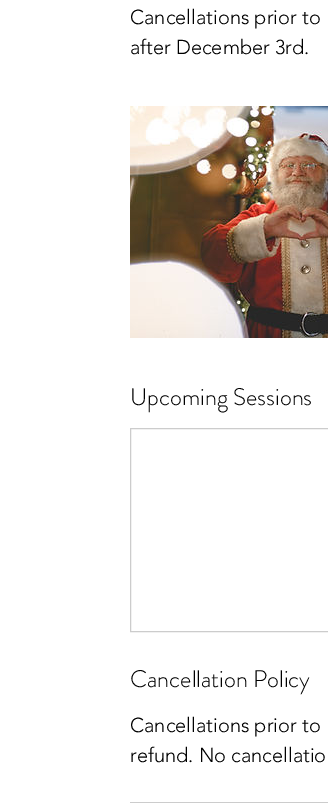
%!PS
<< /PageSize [328 803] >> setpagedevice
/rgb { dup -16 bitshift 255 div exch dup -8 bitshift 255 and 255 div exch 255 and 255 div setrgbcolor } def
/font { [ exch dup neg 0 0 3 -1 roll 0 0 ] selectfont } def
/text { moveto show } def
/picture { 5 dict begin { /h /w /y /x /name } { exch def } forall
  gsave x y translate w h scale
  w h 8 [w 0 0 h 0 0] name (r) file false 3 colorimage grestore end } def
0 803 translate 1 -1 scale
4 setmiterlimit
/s1 { /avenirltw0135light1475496-Light 20 font 16#000000 rgb } def
/s2 { /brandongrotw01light-Light 24 font 16#000000 rgb } def
16#FFFFFF rgb
0 0 328 803 rectfill
s1
(Cancellations prior to) 130 24 text
(after December 3rd.) 130 54 text
(pic1.raw) 130 106 198 232 picture
s2
(Upcoming Sessions) 130 405 text
16#CCCCCC rgb
130.5 428.5 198 203 rectstroke
s2
(Cancellation Policy) 130 687 text
s1
(Cancellations prior to) 130 732 text
(refund. No cancellatio) 130 762 text
16#CCCCCC rgb
130 802 198 1 rectfill
showpage
